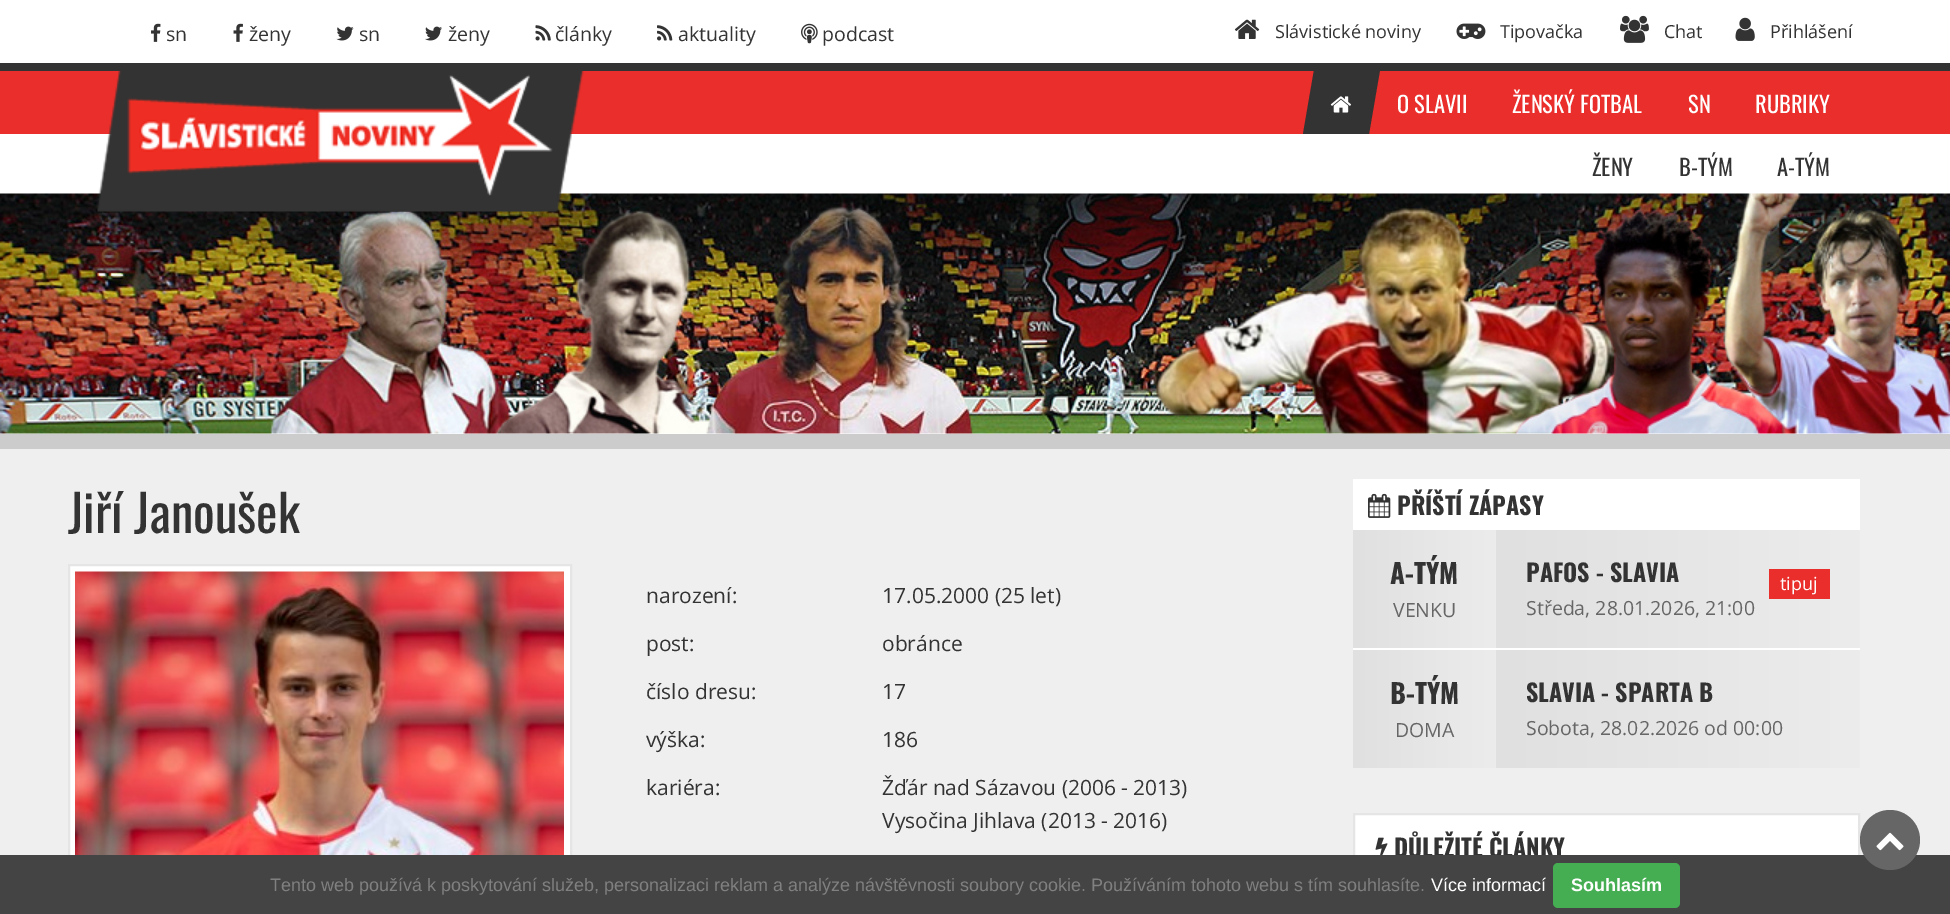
%!PS
<< /PageSize [1950 914] >> setpagedevice
/rgb { dup -16 bitshift 255 div exch dup -8 bitshift 255 and 255 div exch 255 and 255 div setrgbcolor } def
/font { [ exch dup neg 0 0 3 -1 roll 0 0 ] selectfont } def
/text { moveto show } def
/circle { newpath 0 360 arc closepath } def
/roundrect { 5 dict begin { /r /h /w /y /x } { exch def } forall
  x r add y moveto x w add y 2 copy h add r arct x w add y h add x 1 index r arct
  x y h add x y r arct x y 2 copy exch w add exch r arct closepath end } def
/picture { 5 dict begin { /h /w /y /x /name } { exch def } forall
  gsave x y translate w h scale
  w h 8 [w 0 0 h 0 0] name (r) file false 3 colorimage grestore end } def
0 914 translate 1 -1 scale
4 setmiterlimit
/s1 { /OpenSans-Regular 19.5 font 16#333333 rgb } def
/s2 { /OpenSans-Regular 18 font 16#333333 rgb } def
/s3 { /Oswald-Regular 22.5 font 16#FFFFFF rgb } def
/s4 { /Oswald-Regular 22.5 font 16#333333 rgb } def
/s5 { /Oswald-Regular 51 font 16#333333 rgb } def
/s6 { /OpenSans-Regular 21 font 16#333333 rgb } def
/s7 { /Oswald-Bold 24 font 16#333333 rgb } def
/s8 { /Oswald-Bold 27 font 16#333333 rgb } def
/s9 { /OpenSans-Regular 19.5 font 16#666666 rgb } def
/s10 { /OpenSans-Regular 18 font 16#FFFFFF rgb } def
/s11 { /LiberationSans-Regular 18 font 16#808080 rgb } def
/s12 { /LiberationSans-Regular 18 font 16#FFFFFF rgb } def
/s13 { /LiberationSans-Bold 18 font 16#FFFFFF rgb } def
16#EFEFEF rgb
0 0 1950 914 rectfill
16#FFFFFF rgb
0 0 1950 434 rectfill
(pic1.raw) 151 23 10 19 picture
s1
(sn) 166 41 text
(pic2.raw) 233 23 10 19 picture
(ženy) 249 41 text
(pic3.raw) 336 26 18 15 picture
(sn) 359 41 text
(pic4.raw) 425 26 17 15 picture
(ženy) 448 41 text
(pic5.raw) 535 25 16 16 picture
(články) 555 41 text
(pic6.raw) 657 25 16 16 picture
(aktuality) 678 41 text
(pic7.raw) 801 23 17 21 picture
(podcast) 822 41 text
(pic8.raw) 1234 19 26 20 picture
s2
(Slávistické noviny) 1275 38 text
(pic9.raw) 1456 23 30 16 picture
(Tipovačka) 1500 38 text
(pic10.raw) 1620 15 29 28 picture
(Chat) 1664 38 text
(pic11.raw) 1735 17 20 24 picture
(Přihlášení) 1770 38 text
16#EA2E2B rgb
0 71 1950 63 rectfill
16#333333 rgb
0 63 1950 8 rectfill
(pic14.raw) 0 193 1950 241 picture
(pic12.raw) 97 71 487 141 picture
1314 70 moveto 1380 70 lineto 1369 134 lineto 1303 134 lineto closepath fill
(pic13.raw) 1330 96 21 17 picture
s3
(O SLAVII) 1397 113 text
(ŽENSKÝ FOTBAL) 1512 113 text
(SN) 1688 113 text
(RUBRIKY) 1755 113 text
16#CCCCCC rgb
0 434 1950 15 rectfill
s4
(ŽENY) 1592 176 text
(B-TÝM) 1679 176 text
(A-TÝM) 1777 176 text
s5
(Jiří Janoušek) 68 533 text
16#FFFFFF rgb
70 566 500 289 rectfill
16#E5E5E5 rgb
2 setlinewidth
69 565 502 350 rectstroke
(pic15.raw) 75 571 489 284 picture
s6
(narození:) 646 603 text
(17.05.2000 \(25 let\)) 882 603 text
(post:) 646 651 text
(obránce) 882 651 text
(číslo dresu:) 646 699 text
(17) 882 699 text
(výška:) 646 747 text
(186) 882 747 text
(kariéra:) 646 795 text
(Žďár nad Sázavou \(2006 - 2013\)) 882 795 text
(Vysočina Jihlava \(2013 - 2016\)) 882 828 text
16#FFFFFF rgb
1353 479 507 51 rectfill
(pic16.raw) 1368 493 23 25 picture
s7
(PŘÍŠTÍ ZÁPASY) 1397 515 text
gsave 1353 530 moveto 1496 530 lineto 1496 648 lineto 1353 648 lineto closepath clip newpath
<< /ShadingType 2 /ColorSpace /DeviceRGB /Coords [1353 589 1496 589] /Extend [true true] /Function << /FunctionType 2 /Domain [0 1] /C0 [0.878 0.878 0.878] /C1 [0.925 0.925 0.925] /N 1 >> >> shfill grestore
s8
(A-TÝM) 1390 584 text
s9
(VENKU) 1393 617 text
gsave 1496 530 moveto 1860 530 lineto 1860 648 lineto 1496 648 lineto closepath clip newpath
<< /ShadingType 2 /ColorSpace /DeviceRGB /Coords [1496 589 1860 589] /Extend [true true] /Function << /FunctionType 2 /Domain [0 1] /C0 [0.878 0.878 0.878] /C1 [0.925 0.925 0.925] /N 1 >> >> shfill grestore
s7
(PAFOS - SLAVIA) 1526 582 text
16#EA2E2B rgb
1769 569 61 30 rectfill
s10
(tipuj) 1780 590 text
s9
(Středa, 28.01.2026, 21:00) 1526 615 text
16#FFFFFF rgb
1353 648 507 2 rectfill
gsave 1353 650 moveto 1496 650 lineto 1496 768 lineto 1353 768 lineto closepath clip newpath
<< /ShadingType 2 /ColorSpace /DeviceRGB /Coords [1353 709 1496 709] /Extend [true true] /Function << /FunctionType 2 /Domain [0 1] /C0 [0.878 0.878 0.878] /C1 [0.925 0.925 0.925] /N 1 >> >> shfill grestore
s8
(B-TÝM) 1390 704 text
s9
(DOMA) 1395 737 text
gsave 1496 650 moveto 1860 650 lineto 1860 768 lineto 1496 768 lineto closepath clip newpath
<< /ShadingType 2 /ColorSpace /DeviceRGB /Coords [1496 709 1860 709] /Extend [true true] /Function << /FunctionType 2 /Domain [0 1] /C0 [0.878 0.878 0.878] /C1 [0.925 0.925 0.925] /N 1 >> >> shfill grestore
s7
(SLAVIA - SPARTA B) 1526 702 text
s9
(Sobota, 28.02.2026 od 00:00) 1526 735 text
16#FFFFFF rgb
1355 815 503 40 rectfill
16#E5E5E5 rgb
1354 814 505 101 rectstroke
(pic17.raw) 1375 837 13 18 picture
s7
(DŮLEŽITÉ ČLÁNKY) 1394 857 text
16#444444 rgb
0 855 1950 59 rectfill
16#666666 rgb
1890 840 30 circle fill
(pic18.raw) 1876 832 28 19 picture
s11
(Tento web používá k poskytování služeb, personalizaci reklam a analýze návštěvnosti soubory cookie. Používáním tohoto webu s tím souhlasíte.) 270 891 text
s12
(Více informací) 1431 891 text
16#45AE52 rgb
1553 863 127 45 5 roundrect fill
s13
(Souhlasím) 1571 891 text
showpage
